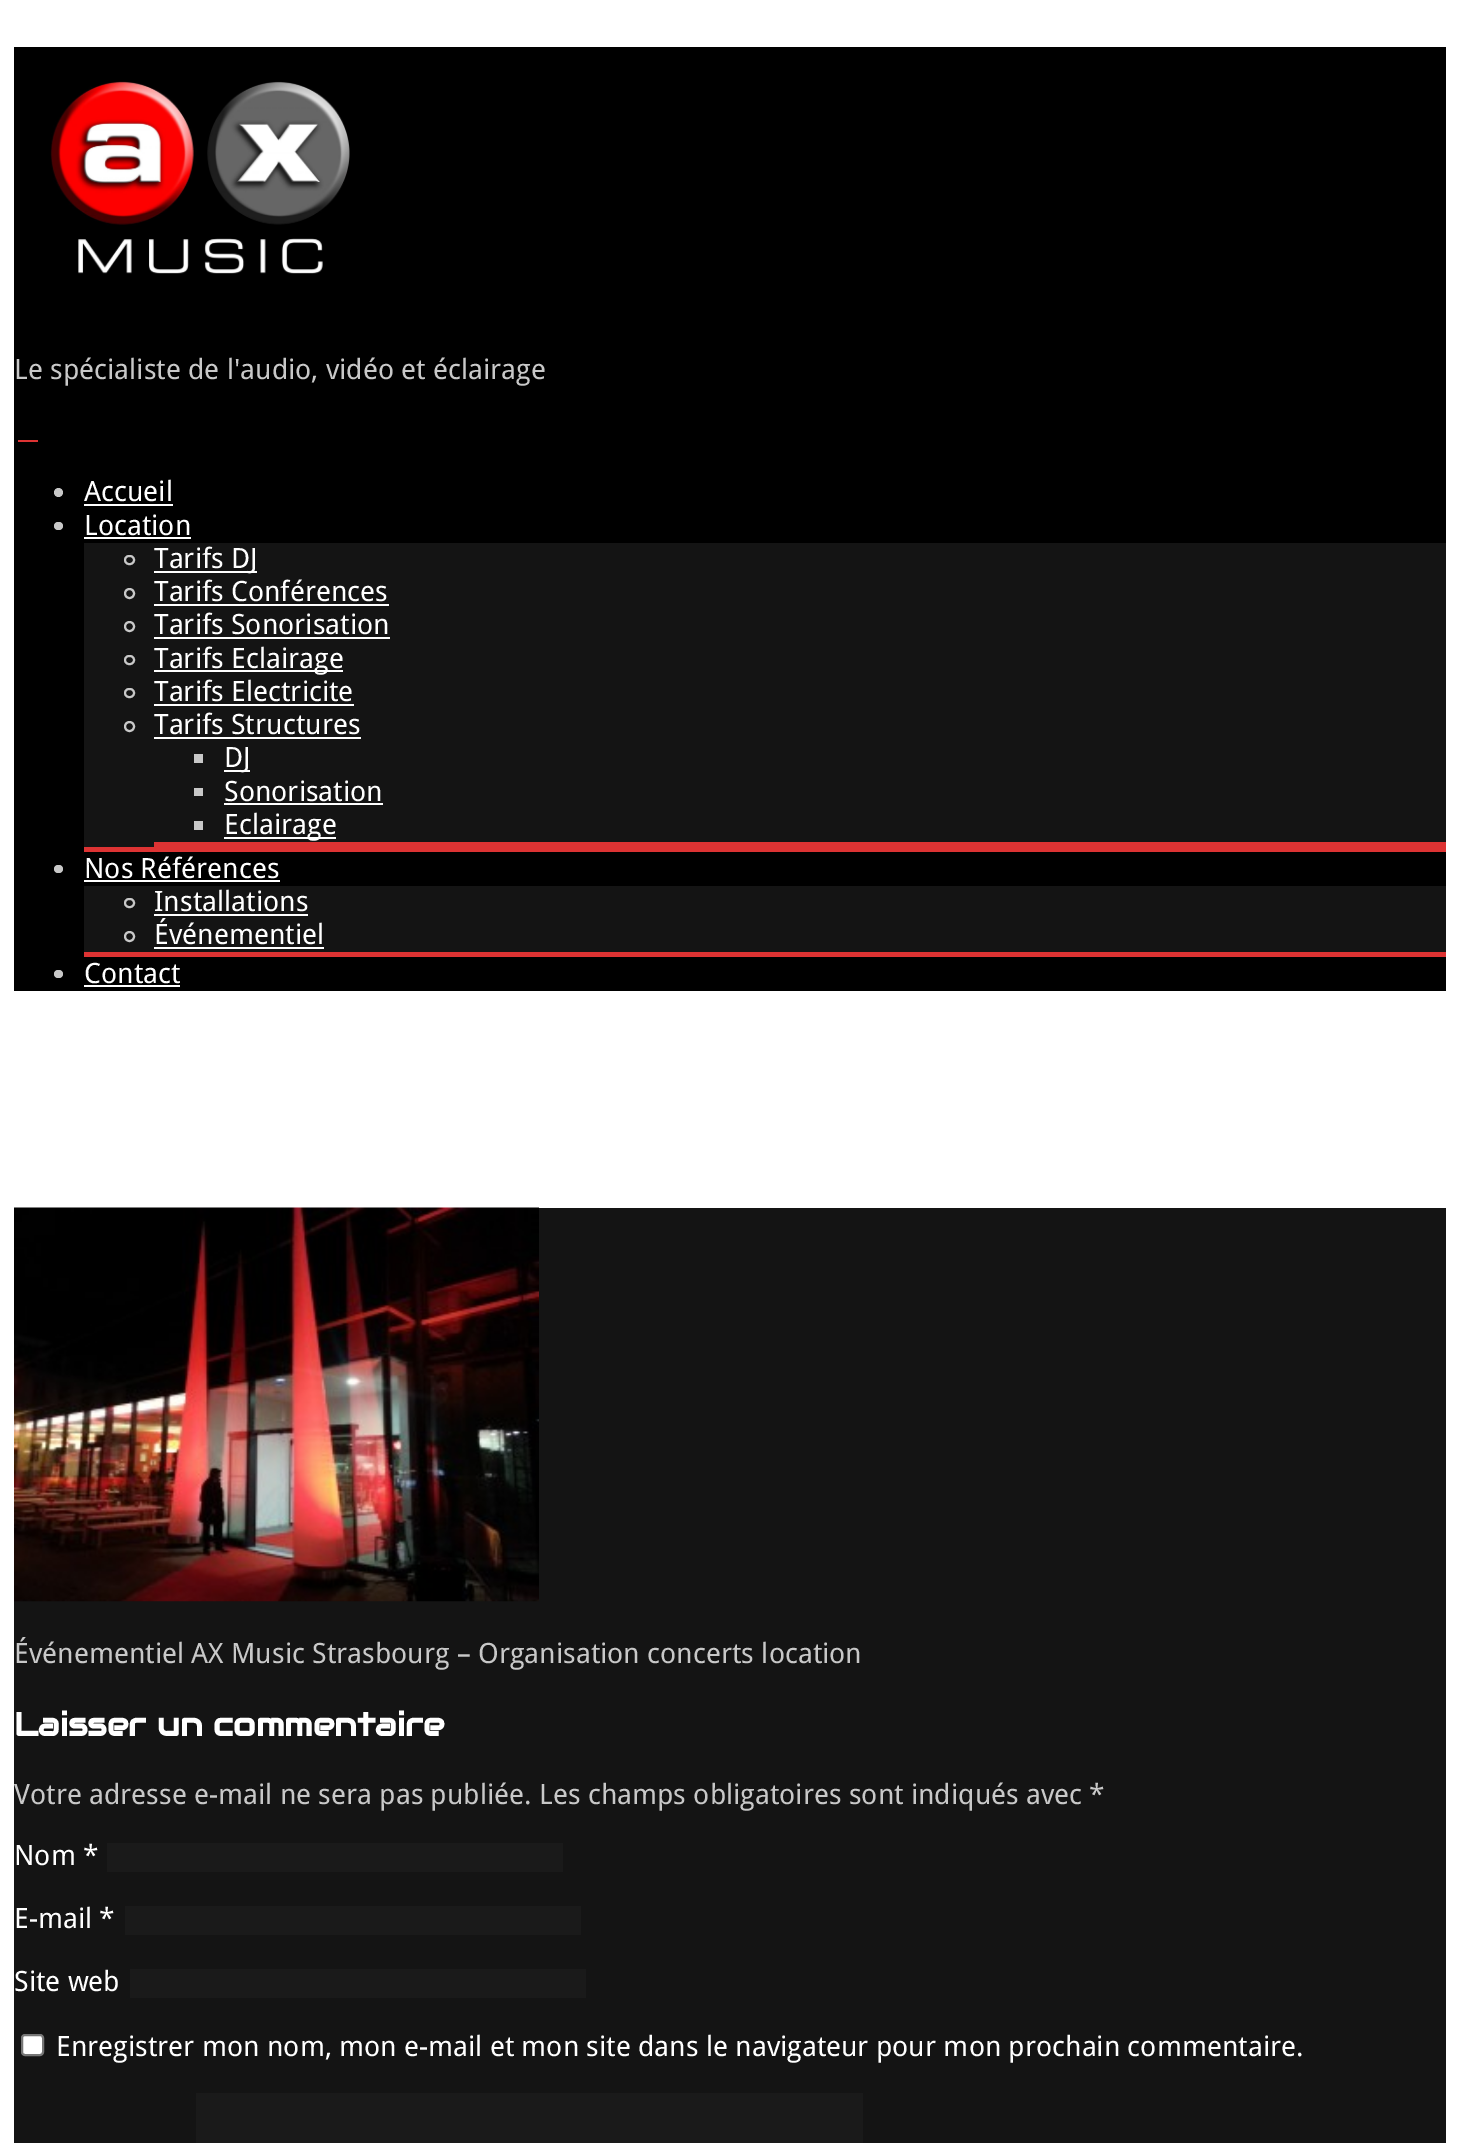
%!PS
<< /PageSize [1459 2143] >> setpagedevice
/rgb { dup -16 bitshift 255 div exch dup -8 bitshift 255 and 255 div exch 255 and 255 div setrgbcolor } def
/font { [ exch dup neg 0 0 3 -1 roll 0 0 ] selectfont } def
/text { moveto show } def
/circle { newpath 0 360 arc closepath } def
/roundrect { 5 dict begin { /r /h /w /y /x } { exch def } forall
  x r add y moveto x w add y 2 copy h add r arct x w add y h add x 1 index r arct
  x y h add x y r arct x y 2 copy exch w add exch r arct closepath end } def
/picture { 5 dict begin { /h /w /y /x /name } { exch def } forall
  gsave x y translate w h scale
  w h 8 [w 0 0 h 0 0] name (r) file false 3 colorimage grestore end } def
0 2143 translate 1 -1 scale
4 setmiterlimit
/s1 { /DroidSans-Regular 28 font 16#C8C8C8 rgb } def
/s2 { /DroidSans-Regular 28 font 16#FFFFFF rgb } def
/s3 { /Audiowide-Bold 32.75 font 16#FFFFFF rgb } def
16#FFFFFF rgb
0 0 1459 2143 rectfill
16#000000 rgb
14 47 1432 944 rectfill
(pic1.raw) 50 81 300 193 picture
s1
(Le spécialiste de l'audio, vidéo et éclairage) 14 379 text
16#DD3333 rgb
18 440 20 2 rectfill
16#C8C8C8 rgb
58.5 492.5 4.5 circle fill
s2
(Accueil) 84 501 text
84 504 89 2 rectfill
16#C8C8C8 rgb
54 522 9 8 4 roundrect fill
s2
(Location) 84 535 text
84 537 107 2 rectfill
16#141414 rgb
84 543 1362 304 rectfill
16#DD3333 rgb
84 847 1362 5 rectfill
16#C8C8C8 rgb
2 setlinewidth
125 556 9 8 4 roundrect stroke
16#FFFFFF rgb
154 571 103 2 rectfill
(Tarifs DJ) 154 568 text
16#C8C8C8 rgb
129.5 593.5 4.5 circle stroke
s2
(Tarifs Conférences) 154 601 text
154 604 235 2 rectfill
16#C8C8C8 rgb
129.5 626.5 4.5 circle stroke
s2
(Tarifs Sonorisation) 154 634 text
154 637 236 2 rectfill
16#C8C8C8 rgb
125 656 9 8 4 roundrect stroke
16#FFFFFF rgb
154 670 189 2 rectfill
(Tarifs Eclairage) 154 668 text
16#C8C8C8 rgb
125 689 9 8 4 roundrect stroke
s2
(Tarifs Electricite) 154 701 text
154 704 200 2 rectfill
16#C8C8C8 rgb
129.5 726.5 4.5 circle stroke
s2
(Tarifs Structures) 154 734 text
154 737 207 2 rectfill
16#DD3333 rgb
154 842 1292 5 rectfill
16#C8C8C8 rgb
194 754 9 9 rectfill
16#FFFFFF rgb
224 770 26 2 rectfill
(DJ) 224 767 text
16#C8C8C8 rgb
194 788 9 8 rectfill
s2
(Sonorisation) 224 801 text
224 803 159 2 rectfill
16#C8C8C8 rgb
194 821 9 9 rectfill
16#FFFFFF rgb
224 837 112 2 rectfill
(Eclairage) 224 834 text
16#C8C8C8 rgb
54 865 9 8 4 roundrect fill
s2
(Nos Références) 84 878 text
84 880 196 2 rectfill
16#141414 rgb
84 886 1362 66 rectfill
16#DD3333 rgb
84 952 1362 5 rectfill
16#C8C8C8 rgb
125 899 9 8 4 roundrect stroke
s2
(Installations) 154 911 text
154 914 154 2 rectfill
16#C8C8C8 rgb
129.5 936.5 4.5 circle stroke
s2
(Événementiel) 154 944 text
154 947 170 2 rectfill
16#C8C8C8 rgb
54 970 9 8 4 roundrect fill
s2
(Contact) 84 983 text
84 985 96 2 rectfill
16#141414 rgb
14 1208 1432 935 rectfill
(pic2.raw) 14 1207 525 395 picture
s1
(Événementiel AX Music Strasbourg – Organisation concerts location) 14 1663 text
s3
(Laisser un commentaire) 14 1736 text
s1
(Votre adresse e-mail ne sera pas publiée. Les champs obligatoires sont indiqués avec *) 14 1804 text
s2
(Nom *) 14 1865 text
16#1A1A1A rgb
107 1843 456 29 rectfill
s2
(E-mail *) 14 1928 text
16#1A1A1A rgb
125 1906 456 29 rectfill
s2
(Site web) 14 1991 text
16#1A1A1A rgb
130 1969 456 29 rectfill
16#FFFFFF rgb
22 2035 21 20 3 roundrect gsave fill grestore
16#767676 rgb
stroke
s2
(Enregistrer mon nom, mon e-mail et mon site dans le navigateur pour mon prochain commentaire.) 56 2056 text
16#1A1A1A rgb
196 2093 667 50 rectfill
showpage
